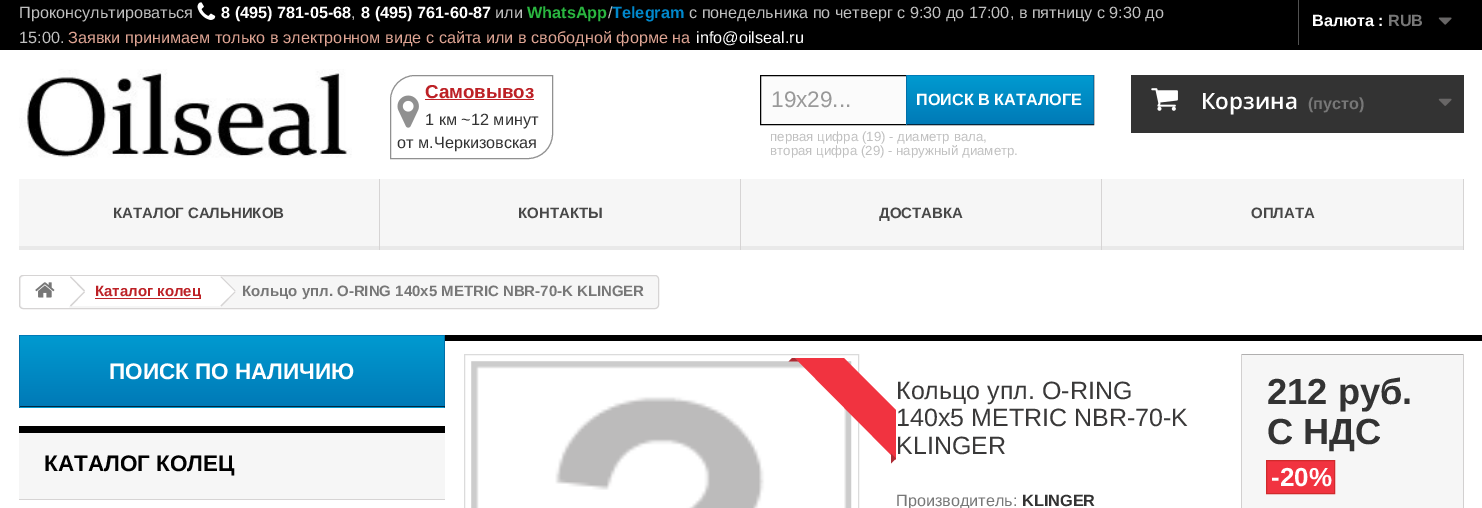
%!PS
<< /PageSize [1482 508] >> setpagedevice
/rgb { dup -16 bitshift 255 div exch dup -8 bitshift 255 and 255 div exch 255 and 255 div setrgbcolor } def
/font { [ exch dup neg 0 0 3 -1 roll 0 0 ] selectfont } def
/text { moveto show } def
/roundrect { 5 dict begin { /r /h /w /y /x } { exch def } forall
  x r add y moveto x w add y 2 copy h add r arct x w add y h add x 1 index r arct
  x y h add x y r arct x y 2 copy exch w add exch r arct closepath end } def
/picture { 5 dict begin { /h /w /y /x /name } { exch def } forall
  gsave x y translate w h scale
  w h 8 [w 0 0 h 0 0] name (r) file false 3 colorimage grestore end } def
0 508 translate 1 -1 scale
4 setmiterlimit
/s1 { /LiberationSans-Regular 16.25 font 16#C0C0C0 rgb } def
/s2 { /LiberationSans-Bold 16.25 font 16#FFFFFF rgb } def
/s3 { /LiberationSans-Bold 16.25 font 16#2AB640 rgb } def
/s4 { /LiberationSans-Bold 16.25 font 16#0088CC rgb } def
/s5 { /LiberationSans-Regular 16.25 font 16#DEA493 rgb } def
/s6 { /LiberationSans-Regular 16.25 font 16#FFFFFF rgb } def
/s7 { /LiberationSans-Bold 16.25 font 16#777777 rgb } def
/s8 { /LiberationSans-Bold 18.75 font 16#BD2126 rgb } def
/s9 { /LiberationSans-Regular 16.25 font 16#333333 rgb } def
/s10 { /LiberationSans-Regular 22.5 font 16#999999 rgb } def
/s11 { /LiberationSans-Regular 13.3 font 16#C0C0C0 rgb } def
/s12 { /OpenSans-SemiBold 22.5 font 16#FFFFFF rgb } def
/s13 { /LiberationSans-Bold 15 font 16#484848 rgb } def
/s14 { /LiberationSans-Bold 15 font 16#BD2126 rgb } def
/s15 { /LiberationSans-Bold 15 font 16#777777 rgb } def
/s16 { /LiberationSans-Bold 22.5 font 16#FFFFFF rgb } def
/s17 { /LiberationSans-Bold 22.5 font 16#000000 rgb } def
/s18 { /LiberationSans-Regular 25 font 16#3A3939 rgb } def
/s19 { /LiberationSans-Regular 16.25 font 16#777777 rgb } def
/s20 { /LiberationSans-Bold 16.25 font 16#333333 rgb } def
/s21 { /LiberationSans-Bold 36.25 font 16#333333 rgb } def
/s22 { /LiberationSans-Bold 26 font 16#FFFFFF rgb } def
16#FFFFFF rgb
0 0 1482 508 rectfill
16#000000 rgb
0 0 1482 50 rectfill
s1
(Проконсультироваться) 19 18 text
(pic1.raw) 197 2 19 18 picture
s2
(8 \(495\) 781-05-68) 221 18 text
s1
(,) 351 18 text
s2
(8 \(495\) 761-60-87) 361 18 text
s1
(или) 495 18 text
s3
(WhatsApp) 527 18 text
s1
(/) 608 18 text
s4
(Telegram) 612 18 text
s1
(c понедельника по четверг с 9:30 до 17:00, в пятницу с 9:30 до) 689 18 text
(15:00.) 19 43 text
s5
(Заявки принимаем только в электронном виде с сайта или в свободной форме на) 68 43 text
s6
(info@oilseal.ru) 696 43 text
16#515151 rgb
1298 0 1 45 rectfill
s2
(Валюта :) 1312 26 text
s7
(RUB) 1388 26 text
(pic2.raw) 1438 17 14 8 picture
(pic3.raw) 19 69 333 89 picture
16#909090 rgb
415 75.5 moveto 552.5 75.5 lineto 552.5 134 lineto 552.5 147.5 541.5 158.5 528 158.5 curveto 390.5 158.5 lineto 390.5 100 lineto 390.5 86.5 401.5 75.5 415 75.5 curveto closepath stroke
(pic4.raw) 397 95 22 33 picture
s8
(Самовывоз) 425 98 text
425 99 109 1 rectfill
s9
(1 км ~12 минут) 425 125 text
(от м.Черкизовская) 397 148 text
16#FBFBFB rgb
761 76 145 48 rectfill
16#000000 rgb
760.5 75.5 333 49 rectstroke
s10
(19x29...) 771 107 text
gsave 906 75 moveto 1094 75 lineto 1094 76 lineto 906 76 lineto closepath clip newpath
<< /ShadingType 2 /ColorSpace /DeviceRGB /Coords [1000 29 1000 76] /Extend [true true] /Function << /FunctionType 2 /Domain [0 1] /C0 [0 0.604 0.816] /C1 [0 0.478 0.718] /N 1 >> >> shfill grestore
gsave 907 76 moveto 1093 76 lineto 1093 124 lineto 907 124 lineto closepath clip newpath
<< /ShadingType 2 /ColorSpace /DeviceRGB /Coords [1000 76 1000 124] /Extend [true true] /Function << /FunctionType 2 /Domain [0 1] /C0 [0 0.604 0.816] /C1 [0 0.478 0.718] /N 1 >> >> shfill grestore
16#006FA8 rgb
1093 75 1 50 rectfill
16#012740 rgb
906 124 188 1 rectfill
16#006FA8 rgb
906 75 1 50 rectfill
s2
(ПОИСК В КАТАЛОГЕ) 916 105 text
s11
(первая цифра \(19\) - диаметр вала,) 770 141 text
(вторая цифра \(29\) - наружный диаметр.) 770 155 text
16#333333 rgb
1131 75 333 58 rectfill
(pic5.raw) 1151 88 27 23 picture
s12
(Корзина) 1201 109 text
s7
(\(пусто\)) 1308 109 text
(pic6.raw) 1438 98 14 8 picture
16#F6F6F6 rgb
19 179 1444 67 rectfill
16#E9E9E9 rgb
19 246 1445 4 rectfill
16#D6D4D4 rgb
379 179 1 71 rectfill
s13
(КАТАЛОГ САЛЬНИКОВ) 113 218 text
16#D6D4D4 rgb
740 179 1 71 rectfill
s13
(КОНТАКТЫ) 518 218 text
16#D6D4D4 rgb
1101 179 1 71 rectfill
s13
(ДОСТАВКА) 879 218 text
16#D6D4D4 rgb
1463 179 1 71 rectfill
s13
(ОПЛАТА) 1251 218 text
16#F6F6F6 rgb
19.5 275.5 639 33 3.5 roundrect gsave fill grestore
16#D6D4D4 rgb
stroke
16#FFFFFF rgb
25 276 moveto 69 276 lineto 69 308 lineto 25 308 lineto 23 308 21 306 21 304 curveto 21 280 lineto 21 278 23 276 25 276 curveto closepath fill
(pic7.raw) 35 282 20 16 picture
69 276 151 30 rectfill
16#D6D4D4 rgb
71 276.5 moveto 85 290.5 lineto 84 291.5 lineto 70 277 lineto closepath fill
84 291.5 moveto 85 292 lineto 71 306.5 lineto 70 305.5 lineto closepath fill
16#BD2126 rgb
95 298 106 1 rectfill
(Каталог колец) 95 296 text
16#FFFFFF rgb
222.5 277 moveto 235 289.5 lineto 236 290.5 236 292 235 293 curveto 222.5 305.5 lineto 221.5 306.5 220 306.5 219 305.5 curveto 206.5 293 lineto 205.5 292 205.5 290.5 206.5 289.5 curveto 219 277 lineto 220 276 221.5 276 222.5 277 curveto closepath fill
16#D6D4D4 rgb
221.5 276.5 moveto 235.5 290.5 lineto 235 291.5 lineto 220.5 277 lineto closepath fill
235 291.5 moveto 235.5 292 lineto 221.5 306.5 lineto 220.5 305.5 lineto closepath fill
s15
(Кольцо упл. O-RING 140x5 METRIC NBR-70-K KLINGER) 242 296 text
gsave 19 335 moveto 445 335 lineto 445 336 lineto 19 336 lineto closepath clip newpath
<< /ShadingType 2 /ColorSpace /DeviceRGB /Coords [232 266 232 336] /Extend [true true] /Function << /FunctionType 2 /Domain [0 1] /C0 [0 0.604 0.816] /C1 [0 0.478 0.718] /N 1 >> >> shfill grestore
gsave 20 336 moveto 444 336 lineto 444 406 lineto 20 406 lineto closepath clip newpath
<< /ShadingType 2 /ColorSpace /DeviceRGB /Coords [232 336 232 406] /Extend [true true] /Function << /FunctionType 2 /Domain [0 1] /C0 [0 0.604 0.816] /C1 [0 0.478 0.718] /N 1 >> >> shfill grestore
gsave 19 407 moveto 445 407 lineto 445 408 lineto 19 408 lineto closepath clip newpath
<< /ShadingType 2 /ColorSpace /DeviceRGB /Coords [232 406 232 476] /Extend [true true] /Function << /FunctionType 2 /Domain [0 1] /C0 [0 0.604 0.816] /C1 [0 0.478 0.718] /N 1 >> >> shfill grestore
16#006FA8 rgb
444 335 1 73 rectfill
16#012740 rgb
19 406 426 1 rectfill
16#006FA8 rgb
19 335 1 73 rectfill
s16
(ПОИСК ПО НАЛИЧИЮ) 109 379 text
16#F6F6F6 rgb
19 433 426 66 rectfill
16#000000 rgb
19 426 426 7 rectfill
(КАТАЛОГ КОЛЕЦ) 44 471 text
16#D6D4D4 rgb
19 499 426 1 rectfill
16#000000 rgb
445 335 1037 6 rectfill
16#DBDBDB rgb
464.5 354.5 394 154 rectstroke
16#FBFBFB rgb
471 361 380 147 rectfill
(pic8.raw) 471 361 381 147 picture
gsave
504 358 392 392 rectclip
16#F13340 rgb
811 325 moveto 926 440 lineto 901 465 lineto 787 350 lineto closepath fill
16#AD2B34 rgb
798.5 361.5 moveto 788.5 361.5 lineto 793.5 356.5 lineto closepath fill
grestore
16#AD2B34 rgb
891 463.5 moveto 891 453.5 lineto 896 458.5 lineto closepath fill
s18
(Кольцо упл. O-RING) 896 399 text
(140x5 METRIC NBR-70-K) 896 426 text
(KLINGER) 896 454 text
s19
(Производитель:) 896 506 text
s20
(KLINGER) 1022 506 text
16#F6F6F6 rgb
1242 355 221 153 rectfill
16#B0AFAF rgb
1241 354 223 1 rectfill
16#D2D0D0 rgb
1463 354 1 154 rectfill
1241 354 1 154 rectfill
s21
(212 руб.) 1267 404 text
(С НДС) 1267 444 text
16#F13340 rgb
1266.5 460.5 moveto 1334.5 460.5 lineto 1334.5 493.5 lineto 1266.5 493.5 lineto closepath gsave fill grestore
16#D02A2C rgb
stroke
s22
(-20%) 1271 486 text
showpage
